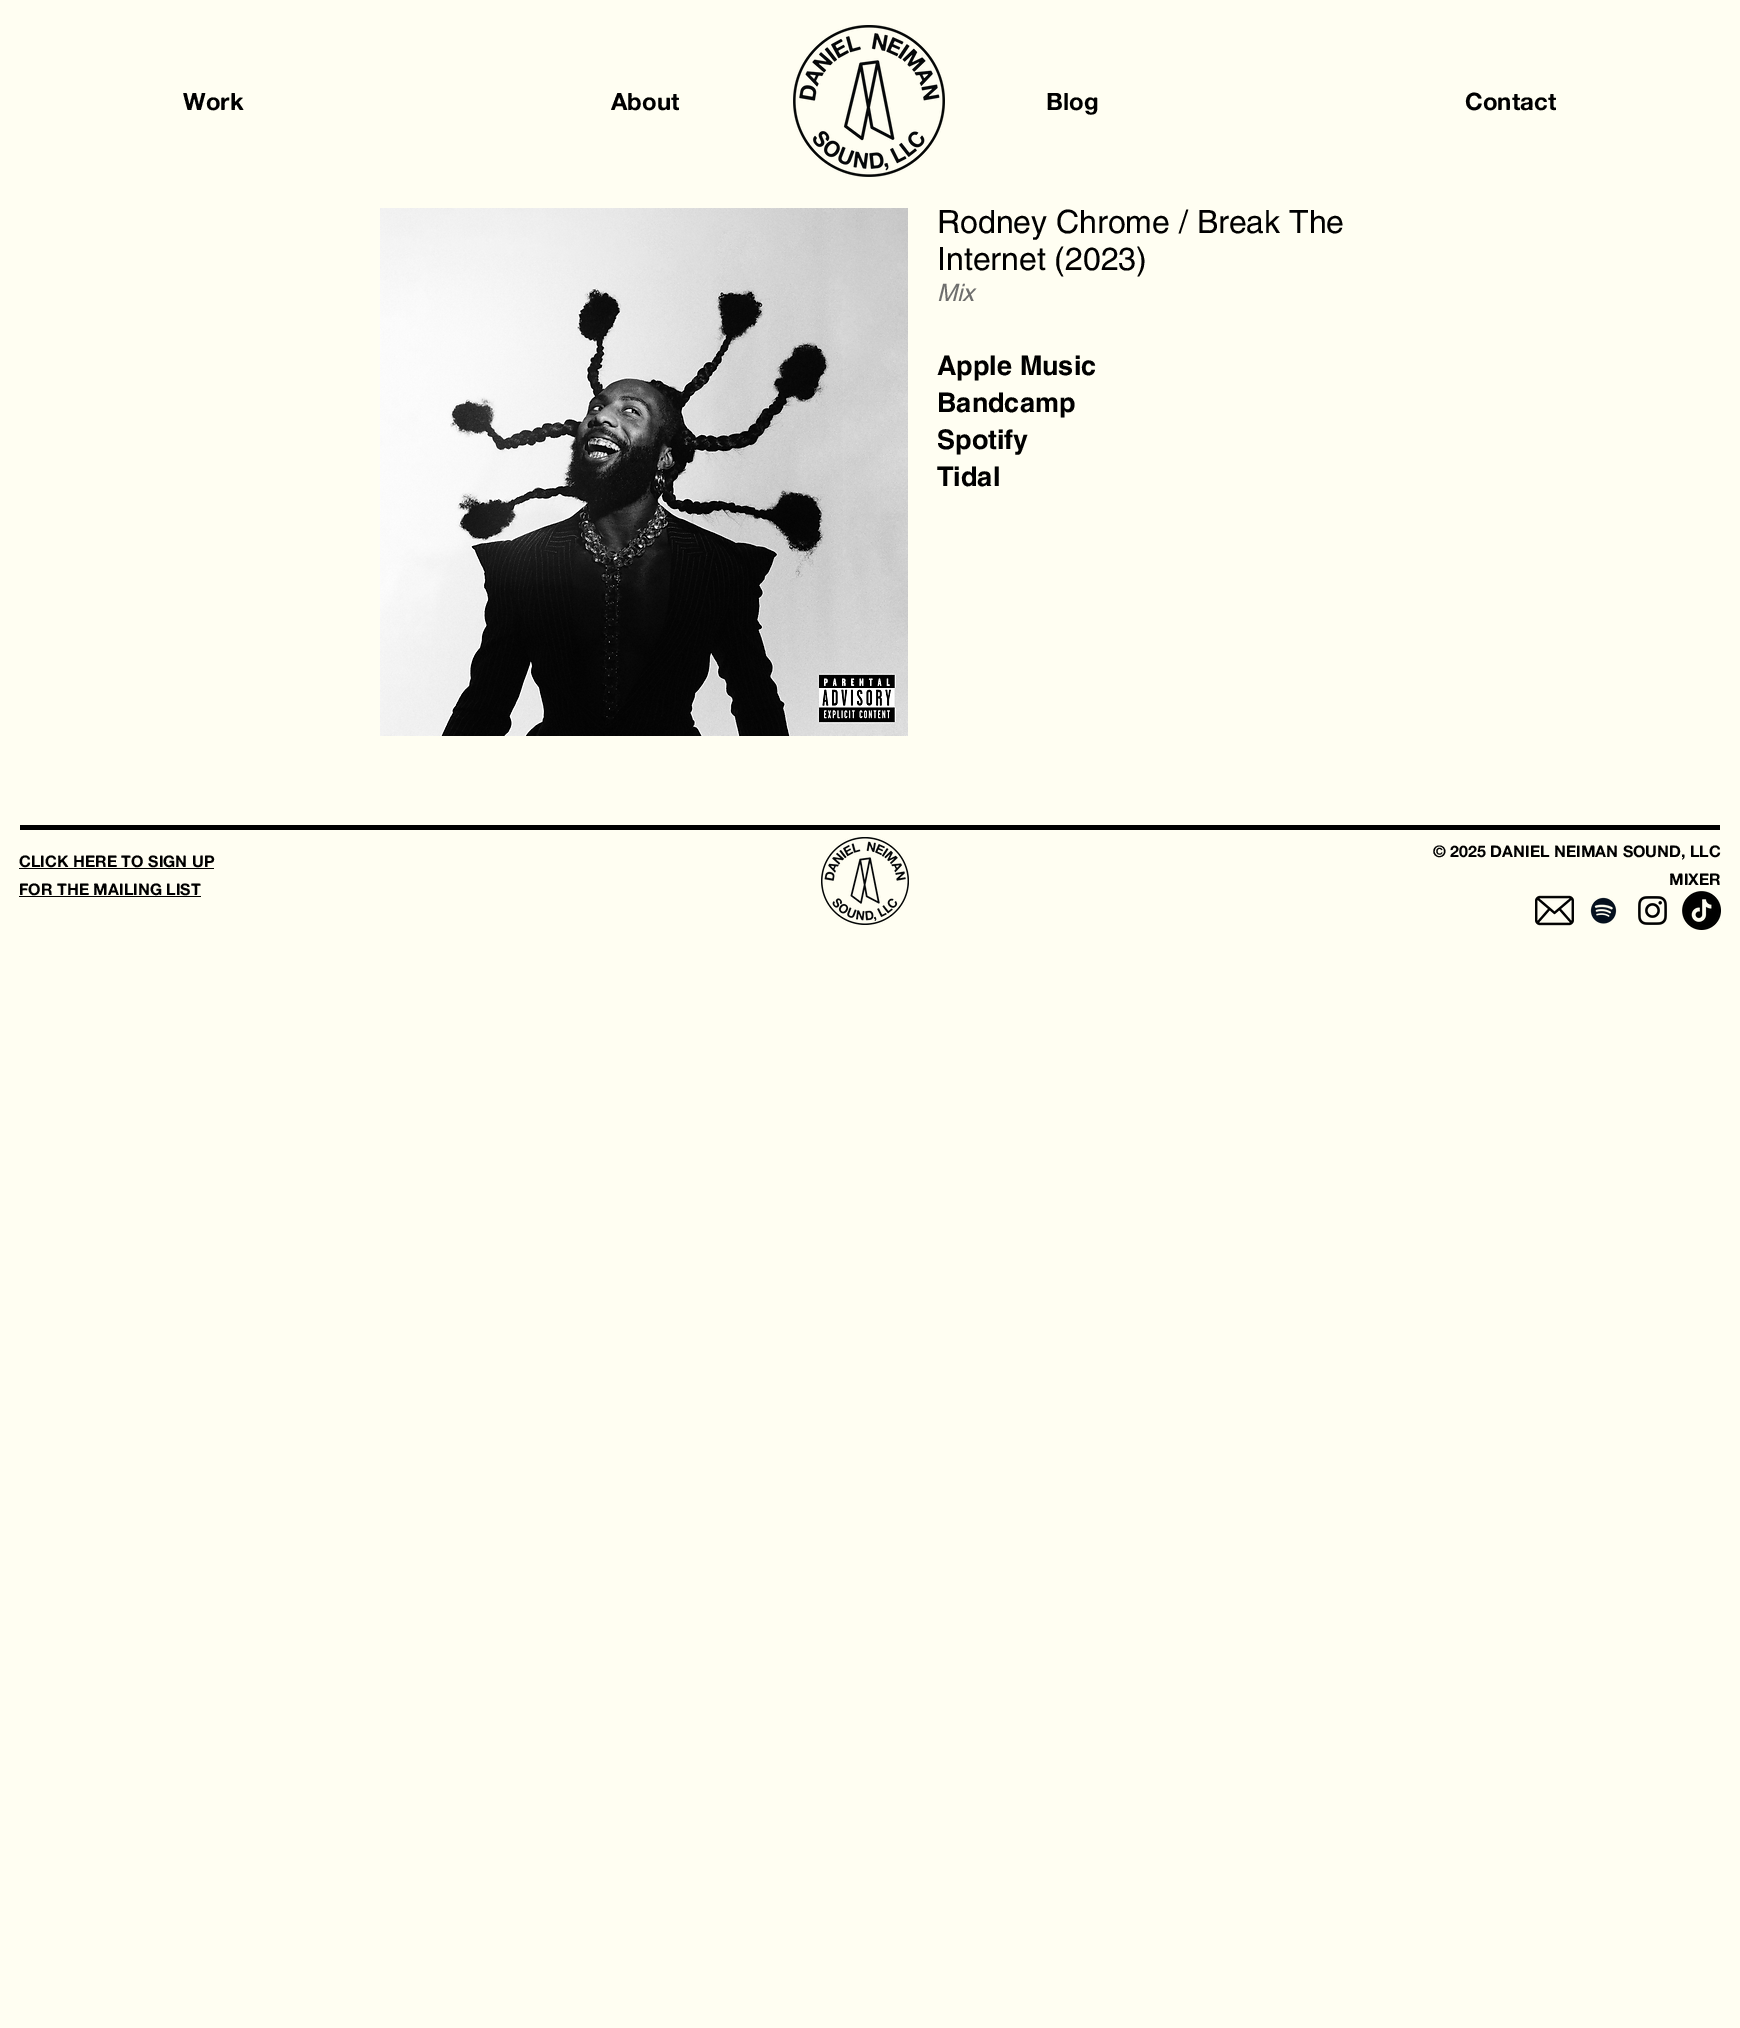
%!PS
<< /PageSize [1740 2028] >> setpagedevice
/rgb { dup -16 bitshift 255 div exch dup -8 bitshift 255 and 255 div exch 255 and 255 div setrgbcolor } def
/font { [ exch dup neg 0 0 3 -1 roll 0 0 ] selectfont } def
/text { moveto show } def
/picture { 5 dict begin { /h /w /y /x /name } { exch def } forall
  gsave x y translate w h scale
  w h 8 [w 0 0 h 0 0] name (r) file false 3 colorimage grestore end } def
0 2028 translate 1 -1 scale
4 setmiterlimit
/s1 { /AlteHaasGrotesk-Bold 24 font 16#000000 rgb } def
/s2 { /helvetica-Regular 32 font 16#000000 rgb } def
/s3 { /helvetica-Italic 24 font 16#6E6E6D rgb } def
/s4 { /helvetica-Bold 27 font 16#000000 rgb } def
/s5 { /AlteHaasGrotesk-Bold 16 font 16#000000 rgb } def
16#FFFEF2 rgb
0 0 1740 2028 rectfill
(pic1.raw) 793 25 152 152 picture
s1
(Work) 183 110 text
(About) 611 110 text
(Blog) 1046 110 text
(Contact) 1465 110 text
(pic2.raw) 380 208 528 528 picture
s2
(Rodney Chrome / Break The) 937 233 text
(Internet \(2023\)) 937 270 text
s3
(Mix) 937 301 text
s4
(Apple Music) 937 375 text
(Bandcamp) 937 412 text
(Spotify) 937 449 text
(Tidal) 937 486 text
20 825 1700 5 rectfill
s5
(CLICK HERE TO SIGN UP) 19 867 text
19 868 195 1 rectfill
(FOR THE MAILING LIST) 19 895 text
19 896 182 1 rectfill
(pic3.raw) 821 837 88 88 picture
(© 2025 DANIEL NEIMAN SOUND, LLC) 1433 857 text
(MIXER) 1669 885 text
(pic4.raw) 1535 895 39 31 picture
(pic5.raw) 1590 897 27 27 picture
(pic6.raw) 1638 896 29 29 picture
(pic7.raw) 1682 891 39 39 picture
showpage
